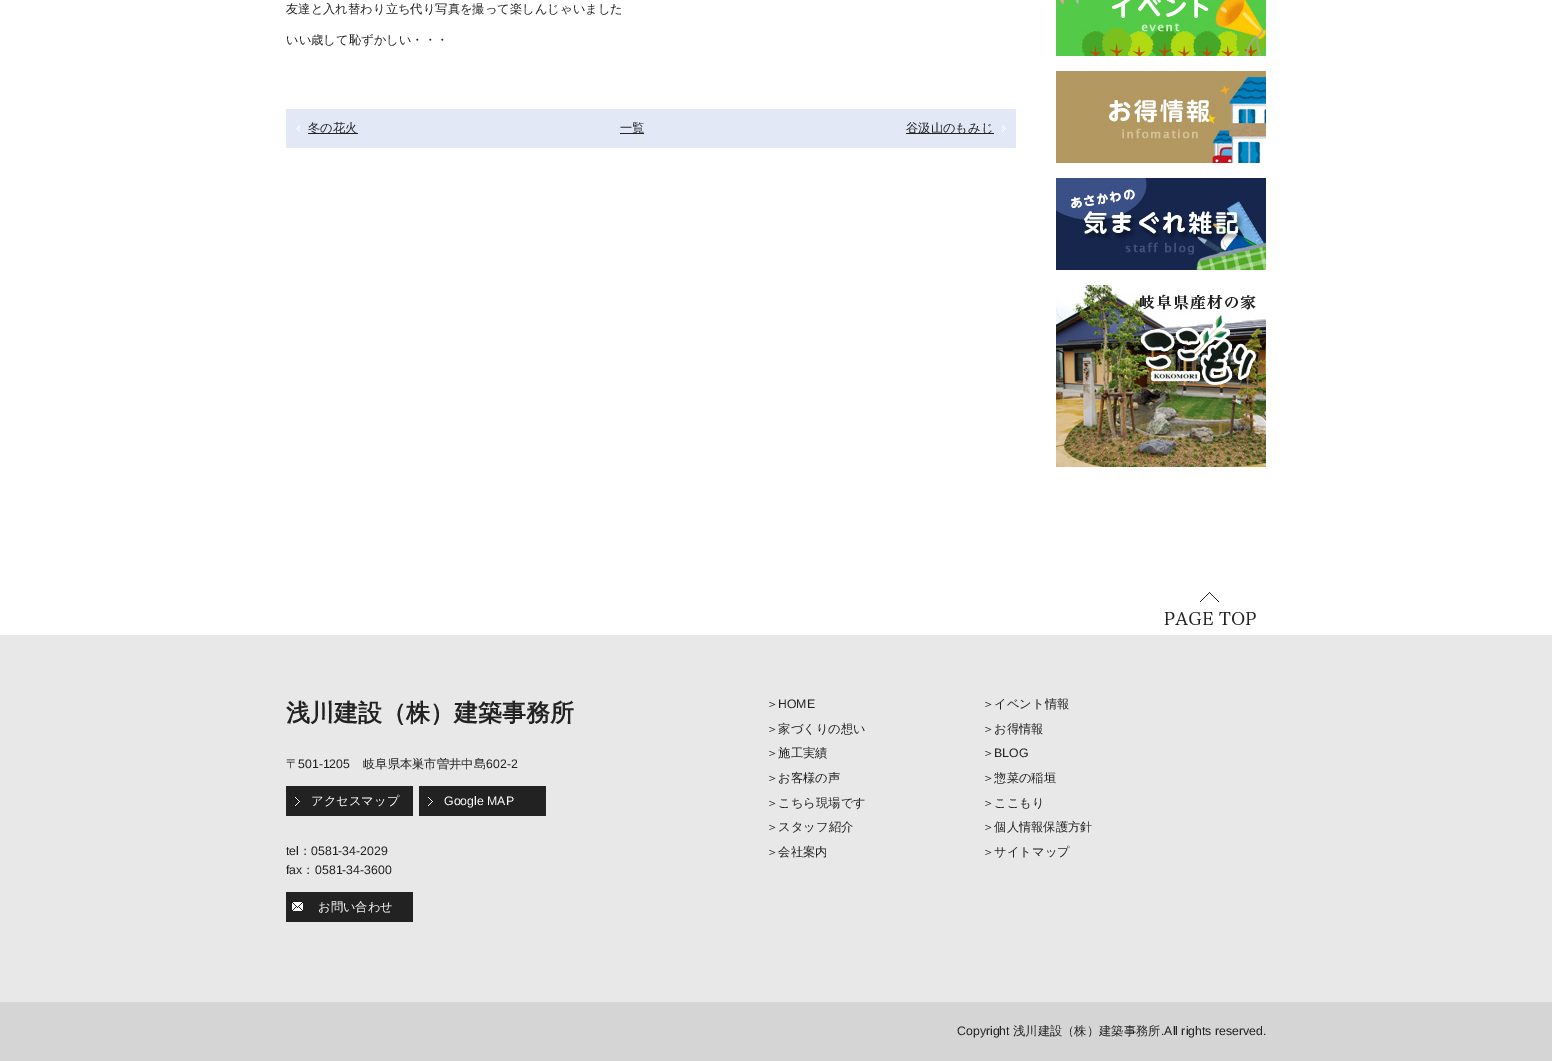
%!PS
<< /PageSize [1552 1061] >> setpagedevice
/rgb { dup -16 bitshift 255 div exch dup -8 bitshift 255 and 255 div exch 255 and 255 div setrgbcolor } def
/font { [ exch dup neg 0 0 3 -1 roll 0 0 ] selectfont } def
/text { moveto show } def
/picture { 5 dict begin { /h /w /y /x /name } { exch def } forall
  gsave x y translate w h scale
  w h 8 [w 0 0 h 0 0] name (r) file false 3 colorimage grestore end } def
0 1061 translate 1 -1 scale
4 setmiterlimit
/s1 { /WenQuanYiZenHei-Medium 12.3 font 16#222222 rgb } def
/s2 { /WenQuanYiZenHei-Bold 24 font 16#222222 rgb } def
/s3 { /LiberationSans-Regular 12.3 font 16#222222 rgb } def
/s4 { /WenQuanYiZenHei-Medium 12.3 font 16#FFFFFF rgb } def
/s5 { /LiberationSans-Regular 12.3 font 16#FFFFFF rgb } def
16#FFFFFF rgb
0 0 1552 1061 rectfill
s1
(友達と入れ替わり立ち代り写真を撮って楽しんじゃいました) 286 13 text
(いい歳して恥ずかしい・・・) 286 44 text
16#E2E8F6 rgb
286 109 730 39 rectfill
(pic1.raw) 296 125 4 7 picture
16#222222 rgb
308 133 50 1 rectfill
(冬の花火) 308 132 text
620 133 24 1 rectfill
(一覧) 620 132 text
(pic2.raw) 1002 125 4 7 picture
906 133 88 1 rectfill
(谷汲山のもみじ) 906 132 text
(pic3.raw) 1056 0 210 56 picture
(pic4.raw) 1056 71 210 92 picture
(pic5.raw) 1056 178 210 92 picture
(pic6.raw) 1056 285 210 182 picture
(pic7.raw) 1164 592 92 33 picture
16#E8E8E8 rgb
0 635 1552 367 rectfill
s2
(浅川建設（株）建築事務所) 286 721 text
s1
(〒) 286 768 text
s3
(501-1205) 298 768 text
s1
(岐阜県本巣市曽井中島) 363 768 text
s3
(602-2) 486 768 text
286 786 127 30 rectfill
(pic8.raw) 295 797 5 9 picture
s4
(アクセスマップ) 311 805 text
16#222222 rgb
419 786 127 30 rectfill
(pic8.raw) 428 797 5 9 picture
s5
(Google MAP) 444 805 text
s3
(tel) 286 855 text
s1
(：) 299 855 text
s3
(0581-34-2029) 311 855 text
(fax) 286 874 text
s1
(：) 302 874 text
s3
(0581-34-3600) 315 874 text
286 892 127 30 rectfill
(pic9.raw) 292 902 11 9 picture
s4
(お問い合わせ) 318 911 text
s1
(＞) 766 708 text
s3
(HOME) 778 708 text
s1
(＞家づくりの想い) 766 733 text
(＞施工実績) 766 757 text
(＞お客様の声) 766 782 text
(＞こちら現場です) 766 807 text
(＞スタッフ紹介) 766 831 text
(＞会社案内) 766 856 text
(＞イベント情報) 982 708 text
(＞お得情報) 982 733 text
(＞) 982 757 text
s3
(BLOG) 994 757 text
s1
(＞惣菜の稲垣) 982 782 text
(＞ここもり) 982 807 text
(＞個人情報保護方針) 982 831 text
(＞サイトマップ) 982 856 text
16#D5D5D5 rgb
0 1002 1552 59 rectfill
s3
(Copyright) 957 1035 text
s1
(浅川建設（株）建築事務所) 1013 1035 text
s3
(.All rights reserved.) 1161 1035 text
showpage
